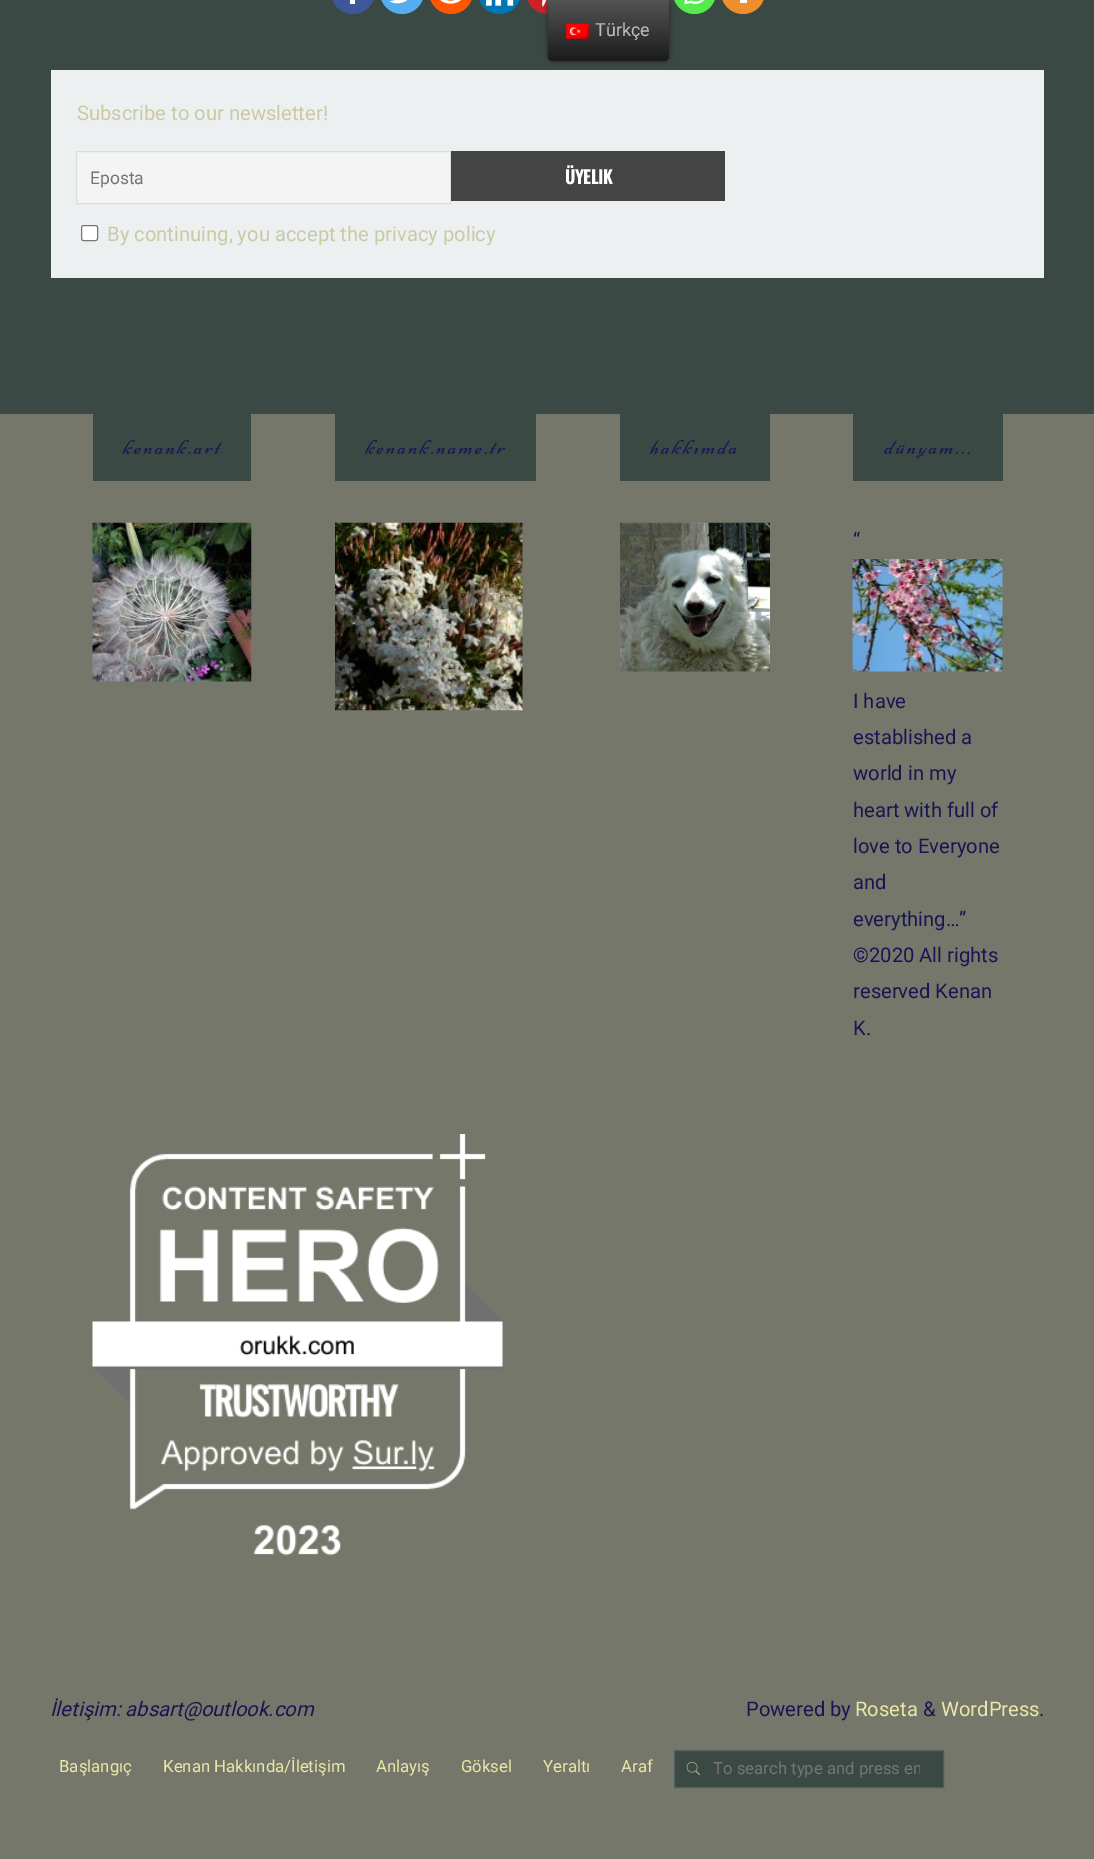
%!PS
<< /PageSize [1094 1859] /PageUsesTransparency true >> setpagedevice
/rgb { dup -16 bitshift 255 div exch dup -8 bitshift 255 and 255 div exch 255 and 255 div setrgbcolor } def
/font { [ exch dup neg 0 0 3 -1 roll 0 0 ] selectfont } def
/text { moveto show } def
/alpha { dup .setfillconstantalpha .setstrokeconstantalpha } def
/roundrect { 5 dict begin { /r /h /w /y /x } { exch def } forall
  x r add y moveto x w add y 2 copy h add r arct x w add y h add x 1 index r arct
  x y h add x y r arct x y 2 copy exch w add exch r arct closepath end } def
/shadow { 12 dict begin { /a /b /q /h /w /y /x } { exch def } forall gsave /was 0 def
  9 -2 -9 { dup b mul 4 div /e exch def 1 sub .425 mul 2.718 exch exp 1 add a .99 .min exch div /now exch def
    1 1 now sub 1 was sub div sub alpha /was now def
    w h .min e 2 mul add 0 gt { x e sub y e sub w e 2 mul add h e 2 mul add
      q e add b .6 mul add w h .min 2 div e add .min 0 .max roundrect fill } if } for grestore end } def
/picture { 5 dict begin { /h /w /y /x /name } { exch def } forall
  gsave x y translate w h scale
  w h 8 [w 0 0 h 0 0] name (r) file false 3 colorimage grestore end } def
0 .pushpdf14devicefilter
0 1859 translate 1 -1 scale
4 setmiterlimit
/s1 { /Roboto-Regular 18 font 16#BDBDBD rgb } def
/s2 { /Roboto-Regular 20.2 font 16#CBC9A4 rgb } def
/s3 { /Roboto-Regular 17.5 font 16#757575 rgb } def
/s4 { /Oswald-Bold 17.5 font 16#FFFFFF rgb } def
/s5 { /Roboto-Regular 20.2 font 16#191554 rgb } def
/s6 { /Roboto-Italic 20.2 font 16#191554 rgb } def
/s7 { /Roboto-Regular 20.2 font 16#EAE8A8 rgb } def
/s8 { /Roboto-Regular 16.75 font 16#EAE8A8 rgb } def
/s9 { /Roboto-Regular 16.75 font 16#757575 rgb } def
16#747769 rgb
0 0 1094 1859 rectfill
16#3B4945 rgb
0 0 1094 414 rectfill
16#CC2329 rgb
526 -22 44 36 22 roundrect fill
(pic5.raw) 542 0 5 7 picture
16#55EB4C rgb
673 -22 43 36 21.5 roundrect fill
16#ECF0F1 rgb
51 70 993 208 rectfill
16#212121 rgb
548 0 121 61 6 3 1 shadow
gsave 548 0 moveto 669 0 lineto 669 55 lineto 669 58.5 666.5 61 663 61 curveto 554 61 lineto 550.5 61 548 58.5 548 55 curveto closepath clip newpath
<< /ShadingType 2 /ColorSpace /DeviceRGB /Coords [608 61 608 0] /Extend [true true] /Function << /FunctionType 2 /Domain [0 1] /C0 [0.106 0.106 0.106] /C1 [0.329 0.329 0.329] /N 1 >> >> shfill grestore
(pic1.raw) 566 23 23 16 picture
s1
(Türkçe) 595 36 text
16#3C589A rgb
331 -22 44 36 22 roundrect fill
16#FFFFFF rgb
350 0 5 4 rectfill
16#55ACEE rgb
380 -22 44 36 22 roundrect fill
(pic2.raw) 389 0 19 4 picture
16#FF5700 rgb
429 -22 44 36 22 roundrect fill
(pic3.raw) 440 0 21 4 picture
16#0077B5 rgb
478 -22 43 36 21.5 roundrect fill
(pic4.raw) 486 0 28 6 picture
(pic6.raw) 684 0 21 5 picture
16#EE8E2D rgb
721 -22 44 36 22 roundrect fill
16#FFFFFF rgb
740 0 7 3 rectfill
s2
(Subscribe to our newsletter!) 77 120 text
16#F4F4F4 rgb
76.5 151.5 moveto 450.5 151.5 lineto 450.5 203.5 lineto 76.5 203.5 lineto closepath gsave fill grestore
16#DDDDDD rgb
stroke
s3
(Eposta) 90 184 text
16#444444 rgb
451 151 274 50 rectfill
s4
(ÜYELIK) 565 184 text
81.5 225.5 16 15 2 roundrect gsave fill grestore
16#767676 rgb
stroke
s2
(By continuing, you accept the privacy policy) 107 241 text
16#3B4945 rgb
93 414 158 67 rectfill
(pic7.raw) 122 439 100 15 picture
(pic8.raw) 92 522 160 160 picture
335 414 201 67 rectfill
(pic9.raw) 365 439 141 15 picture
(pic10.raw) 335 522 188 189 picture
620 414 150 67 rectfill
(pic11.raw) 650 439 87 15 picture
(pic12.raw) 620 522 150 150 picture
853 414 150 67 rectfill
(pic13.raw) 884 440 86 19 picture
s5
(“) 853 547 text
(pic14.raw) 852 559 151 113 picture
(I have) 853 708 text
(established a) 853 744 text
(world in my) 853 780 text
(heart with full of) 853 817 text
(love to Everyone) 853 853 text
(and) 853 889 text
(everything…”) 853 926 text
(©2020 All rights) 853 962 text
(reserved Kenan) 853 998 text
(K.) 853 1035 text
(pic15.raw) 92 1134 411 422 picture
s6
(İletişim: absart@outlook.com) 50 1716 text
s5
(Powered by) 746 1716 text
s7
(Roseta) 855 1716 text
s5
(&) 923 1716 text
s7
(WordPress) 941 1716 text
s5
(.) 1039 1716 text
s8
(Başlangıç) 59 1772 text
(Kenan Hakkında/İletişim) 163 1772 text
(Anlayış) 376 1772 text
(Göksel) 461 1772 text
(Yeraltı) 543 1772 text
(Araf) 621 1772 text
16#3B4945 rgb
674.5 1750.5 moveto 943.5 1750.5 lineto 943.5 1787.5 lineto 674.5 1787.5 lineto closepath gsave fill grestore
16#515F5B rgb
stroke
(pic16.raw) 686 1761 14 14 picture
gsave
713 1760 207 19 rectclip
s9
(To search type and press en) 713 1774 text
grestore
.poppdf14devicefilter showpage
